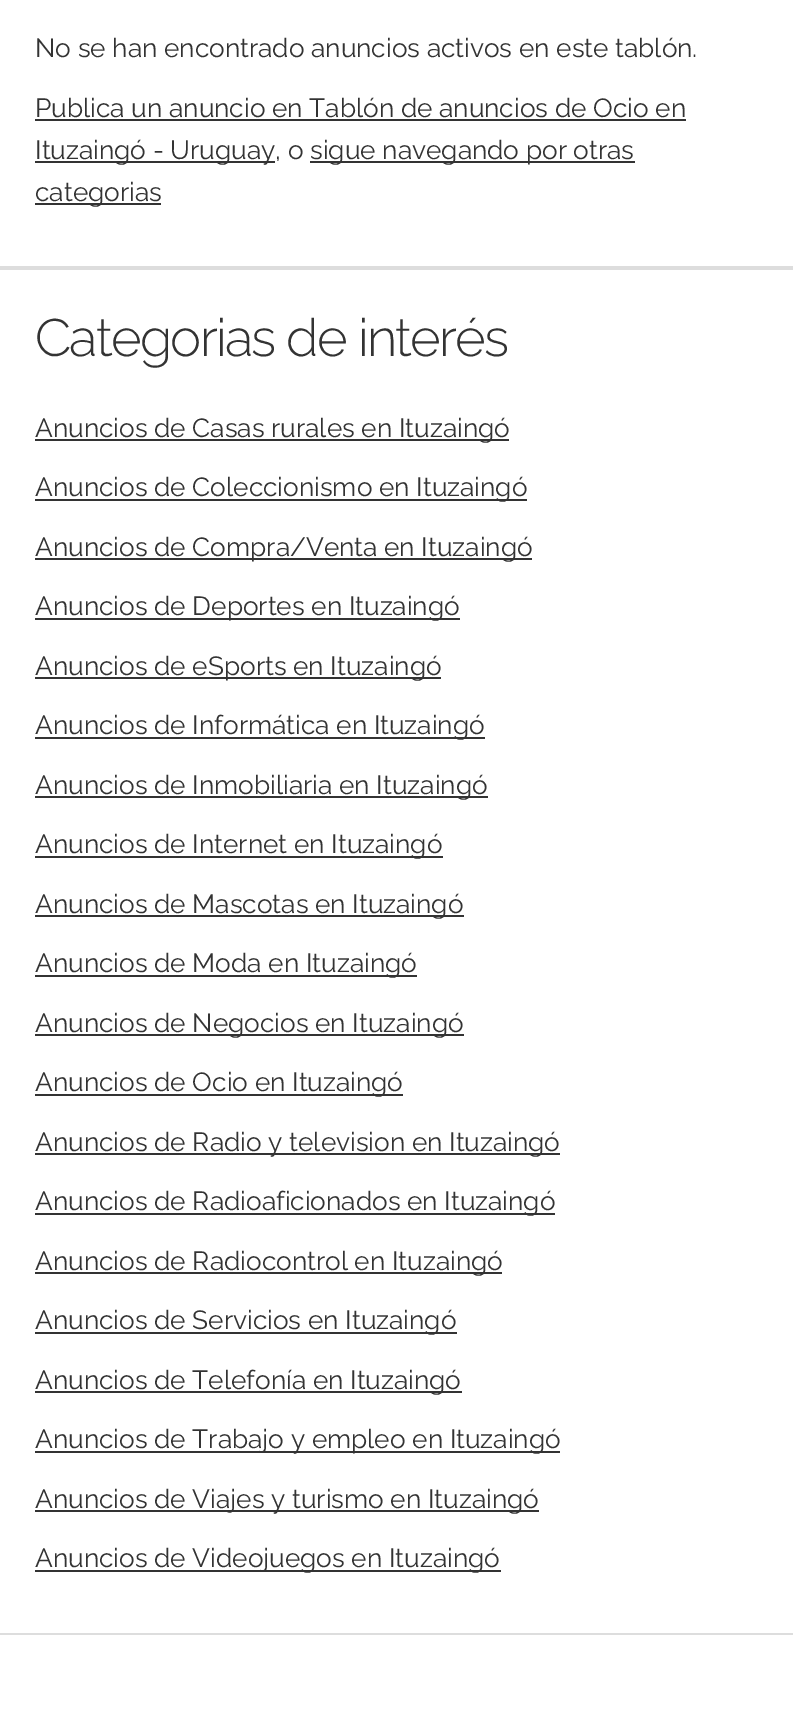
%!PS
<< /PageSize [793 1728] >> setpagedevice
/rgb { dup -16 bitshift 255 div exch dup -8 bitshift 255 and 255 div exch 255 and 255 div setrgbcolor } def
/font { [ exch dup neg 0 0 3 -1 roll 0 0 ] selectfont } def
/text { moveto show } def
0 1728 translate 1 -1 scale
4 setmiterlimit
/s1 { /Raleway-Regular 26.25 font 16#333333 rgb } def
16#FFFFFF rgb
0 0 793 1728 rectfill
s1
(No se han encontrado anuncios activos en este tablón.) 35 57 text
(Publica un anuncio en Tablón de anuncios de Ocio en) 35 117 text
35 119 651 2 rectfill
35 161 240 2 rectfill
(Ituzaingó - Uruguay, o) 35 159 text
310 161 325 2 rectfill
(sigue navegando por otras) 310 159 text
35 203 126 2 rectfill
(categorias) 35 201 text
16#DDDDDD rgb
0 266 793 4 rectfill
/Raleway-Light 52.5 font
16#333333 rgb
35 356 moveto -1.75 0 (Categorias de interés) ashow
35 439 474 2 rectfill
s1
(Anuncios de Casas rurales en Ituzaingó) 35 437 text
35 499 492 2 rectfill
(Anuncios de Coleccionismo en Ituzaingó) 35 496 text
35 558 497 2 rectfill
(Anuncios de Compra/Venta en Ituzaingó) 35 556 text
35 618 425 2 rectfill
(Anuncios de Deportes en Ituzaingó) 35 615 text
35 677 406 2 rectfill
(Anuncios de eSports en Ituzaingó) 35 675 text
35 737 450 2 rectfill
(Anuncios de Informática en Ituzaingó) 35 734 text
35 796 453 2 rectfill
(Anuncios de Inmobiliaria en Ituzaingó) 35 794 text
35 856 408 2 rectfill
(Anuncios de Internet en Ituzaingó) 35 853 text
35 915 429 2 rectfill
(Anuncios de Mascotas en Ituzaingó) 35 913 text
35 975 382 2 rectfill
(Anuncios de Moda en Ituzaingó) 35 972 text
35 1034 429 2 rectfill
(Anuncios de Negocios en Ituzaingó) 35 1032 text
35 1094 368 2 rectfill
(Anuncios de Ocio en Ituzaingó) 35 1091 text
35 1153 525 2 rectfill
(Anuncios de Radio y television en Ituzaingó) 35 1151 text
35 1213 520 2 rectfill
(Anuncios de Radioaficionados en Ituzaingó) 35 1210 text
35 1272 467 2 rectfill
(Anuncios de Radiocontrol en Ituzaingó) 35 1270 text
35 1332 422 2 rectfill
(Anuncios de Servicios en Ituzaingó) 35 1329 text
35 1391 427 2 rectfill
(Anuncios de Telefonía en Ituzaingó) 35 1389 text
35 1451 525 2 rectfill
(Anuncios de Trabajo y empleo en Ituzaingó) 35 1448 text
35 1510 504 2 rectfill
(Anuncios de Viajes y turismo en Ituzaingó) 35 1508 text
35 1570 466 2 rectfill
(Anuncios de Videojuegos en Ituzaingó) 35 1567 text
16#DDDDDD rgb
0 1633 793 2 rectfill
showpage
